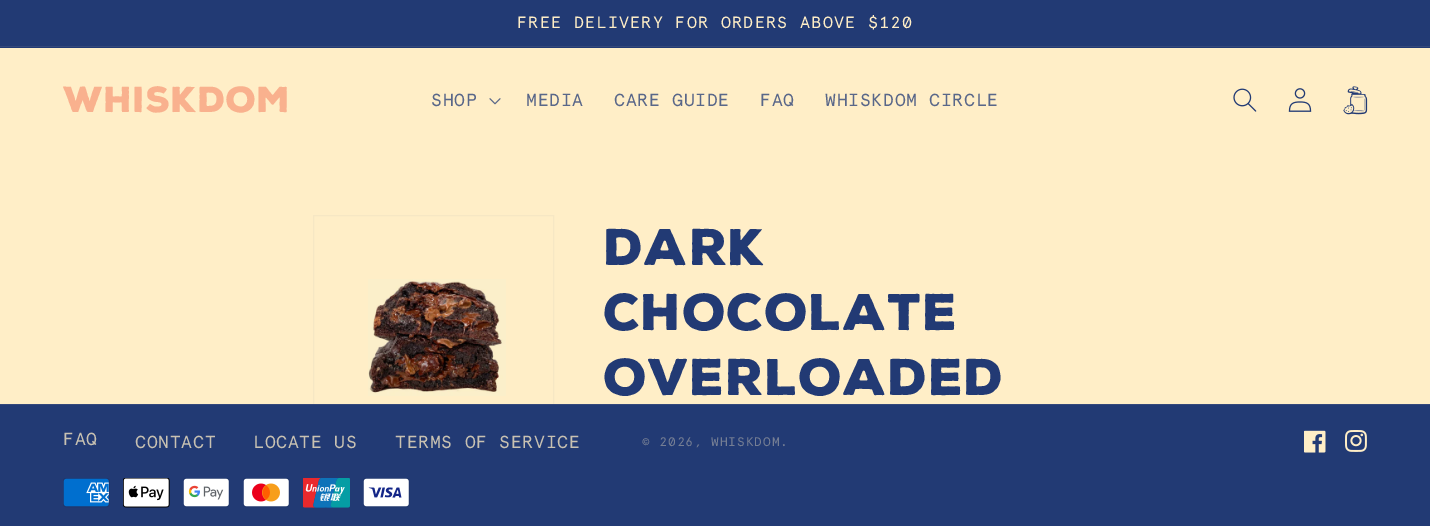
%!PS
<< /PageSize [1430 526] >> setpagedevice
/rgb { dup -16 bitshift 255 div exch dup -8 bitshift 255 and 255 div exch 255 and 255 div setrgbcolor } def
/font { [ exch dup neg 0 0 3 -1 roll 0 0 ] selectfont } def
/picture { 5 dict begin { /h /w /y /x /name } { exch def } forall
  gsave x y translate w h scale
  w h 8 [w 0 0 h 0 0] name (r) file false 3 colorimage grestore end } def
0 526 translate 1 -1 scale
4 setmiterlimit
16#FFEEC7 rgb
0 0 1430 526 rectfill
16#223A74 rgb
0 0 1430 48 rectfill
16#34487B rgb
0 46 1430 1 rectfill
/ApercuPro-Regular 16.25 font
16#FFEEC7 rgb
517 28 moveto 1.25 0 (FREE DELIVERY FOR ORDERS ABOVE $120) ashow
/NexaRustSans-Black 35 font
16#F9B18E rgb
63 112 moveto 0.75 0 (Whiskdom) ashow
/ApercuPro-Regular 17.5 font
16#596789 rgb
431 106 moveto 0.75 0 (SHOP) ashow
(pic1.raw) 489 98 12 7 picture
526 106 moveto 0.75 0 (MEDIA) ashow
614 106 moveto 0.75 0 (CARE GUIDE) ashow
760 106 moveto 0.75 0 (FAQ) ashow
825 106 moveto 0.75 0 (WHISKDOM CIRCLE) ashow
(pic2.raw) 1233 88 24 24 picture
(pic3.raw) 1288 88 24 24 picture
(pic4.raw) 1343 86 25 29 picture
16#F6E7C4 rgb
313.5 215.5 240 240 rectstroke
(pic5.raw) 368 279 138 117 picture
/NexaRustSans-Black 50 font
16#223A74 rgb
604 265 moveto 0.75 0 (Dark) ashow
604 330 moveto 0.75 0 (Chocolate) ashow
604 395 moveto 0.75 0 (Overloaded) ashow
0 405 1430 121 rectfill
16#34487B rgb
0 404 1430 1 rectfill
/ApercuPro-Regular 17.5 font
16#C8C1B2 rgb
63 445 moveto 0.75 0 (FAQ) ashow
135 448 moveto 0.75 0 (CONTACT) ashow
253 448 moveto 0.75 0 (LOCATE US) ashow
395 448 moveto 0.75 0 (TERMS OF SERVICE) ashow
/ApercuPro-Regular 12.5 font
16#757E94 rgb
642 446 moveto 0.9 0 (© 2026, WHISKDOM.) ashow
(pic6.raw) 1304 430 22 23 picture
(pic7.raw) 1345 430 22 22 picture
(pic8.raw) 63 478 47 30 picture
(pic9.raw) 123 478 47 30 picture
(pic10.raw) 183 478 47 30 picture
(pic11.raw) 243 478 47 30 picture
(pic12.raw) 303 478 47 30 picture
(pic13.raw) 363 478 47 30 picture
showpage
